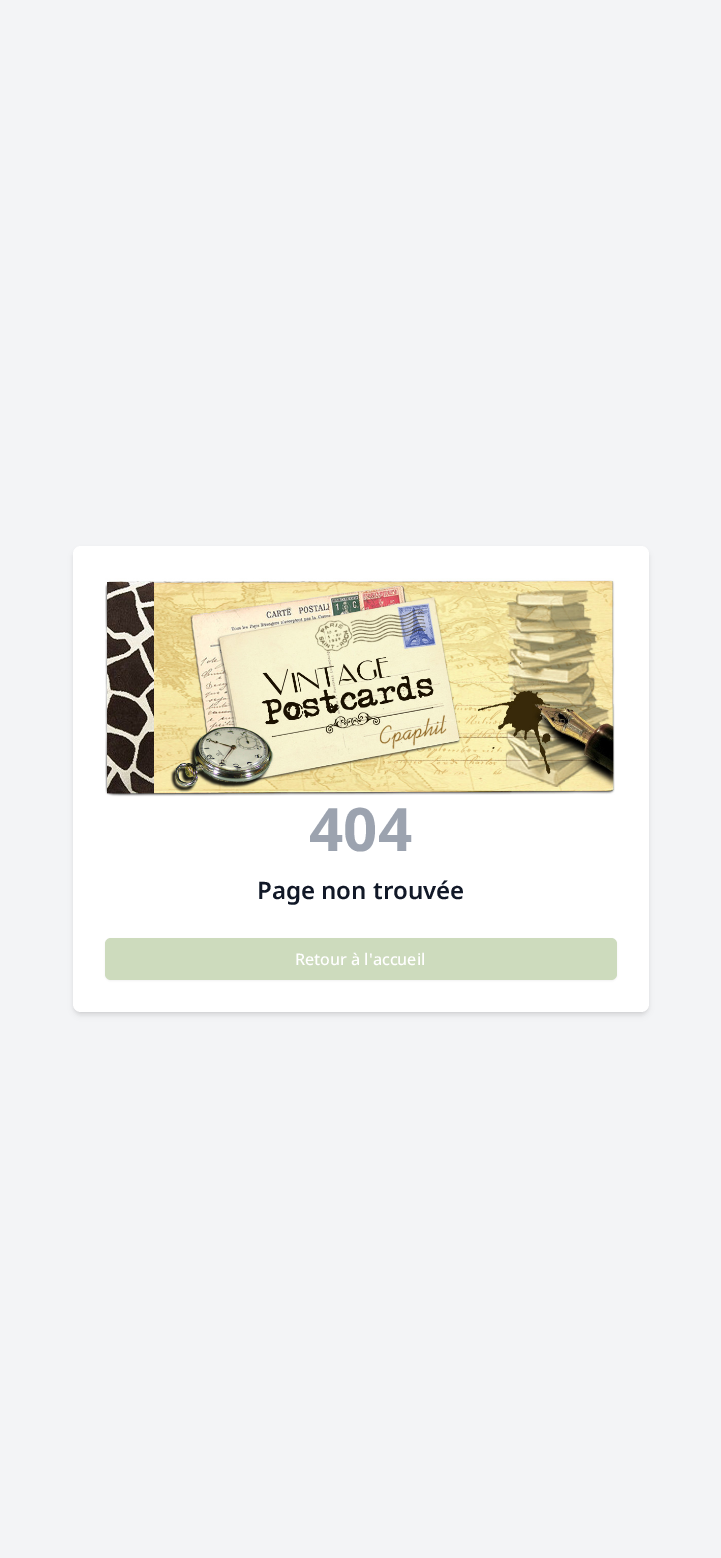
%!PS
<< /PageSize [721 1558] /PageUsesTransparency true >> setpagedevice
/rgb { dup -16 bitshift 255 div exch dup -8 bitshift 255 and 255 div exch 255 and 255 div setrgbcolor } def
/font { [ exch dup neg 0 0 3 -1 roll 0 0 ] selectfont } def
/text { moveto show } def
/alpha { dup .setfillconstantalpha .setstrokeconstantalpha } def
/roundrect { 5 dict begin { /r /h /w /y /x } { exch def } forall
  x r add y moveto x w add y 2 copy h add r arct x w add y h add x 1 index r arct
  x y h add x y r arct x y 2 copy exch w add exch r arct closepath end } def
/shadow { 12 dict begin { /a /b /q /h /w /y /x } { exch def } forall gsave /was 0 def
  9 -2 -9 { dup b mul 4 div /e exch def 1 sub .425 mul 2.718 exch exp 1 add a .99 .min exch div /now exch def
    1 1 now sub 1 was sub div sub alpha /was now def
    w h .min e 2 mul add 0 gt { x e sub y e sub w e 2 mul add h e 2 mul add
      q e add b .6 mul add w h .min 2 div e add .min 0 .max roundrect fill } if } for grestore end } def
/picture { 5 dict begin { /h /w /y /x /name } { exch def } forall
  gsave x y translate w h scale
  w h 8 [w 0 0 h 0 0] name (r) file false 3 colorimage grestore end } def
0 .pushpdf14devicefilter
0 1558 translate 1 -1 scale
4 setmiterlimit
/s1 { /NotoSans-Bold 60 font 16#9CA3AF rgb } def
/s2 { /NotoSans-SemiBold 24 font 16#111827 rgb } def
/s3 { /NotoSans-Medium 16 font 16#FFFFFF rgb } def
16#F3F4F6 rgb
0 0 721 1558 rectfill
16#000000 rgb
75 550 572 462 6 2 0.1 shadow
74 551 574 464 7 3 0.1 shadow
16#FFFFFF rgb
73 546 576 466 8 roundrect fill
(pic1.raw) 105 578 510 219 picture
s1
(404) 309 851 text
s2
(Page non trouvée) 257 899 text
16#000000 rgb
105 939 512 42 6 1 0.05 shadow
16#CDDBBD rgb
105 938 512 42 6 roundrect fill
s3
(Retour à l'accueil) 295 965 text
.poppdf14devicefilter showpage
